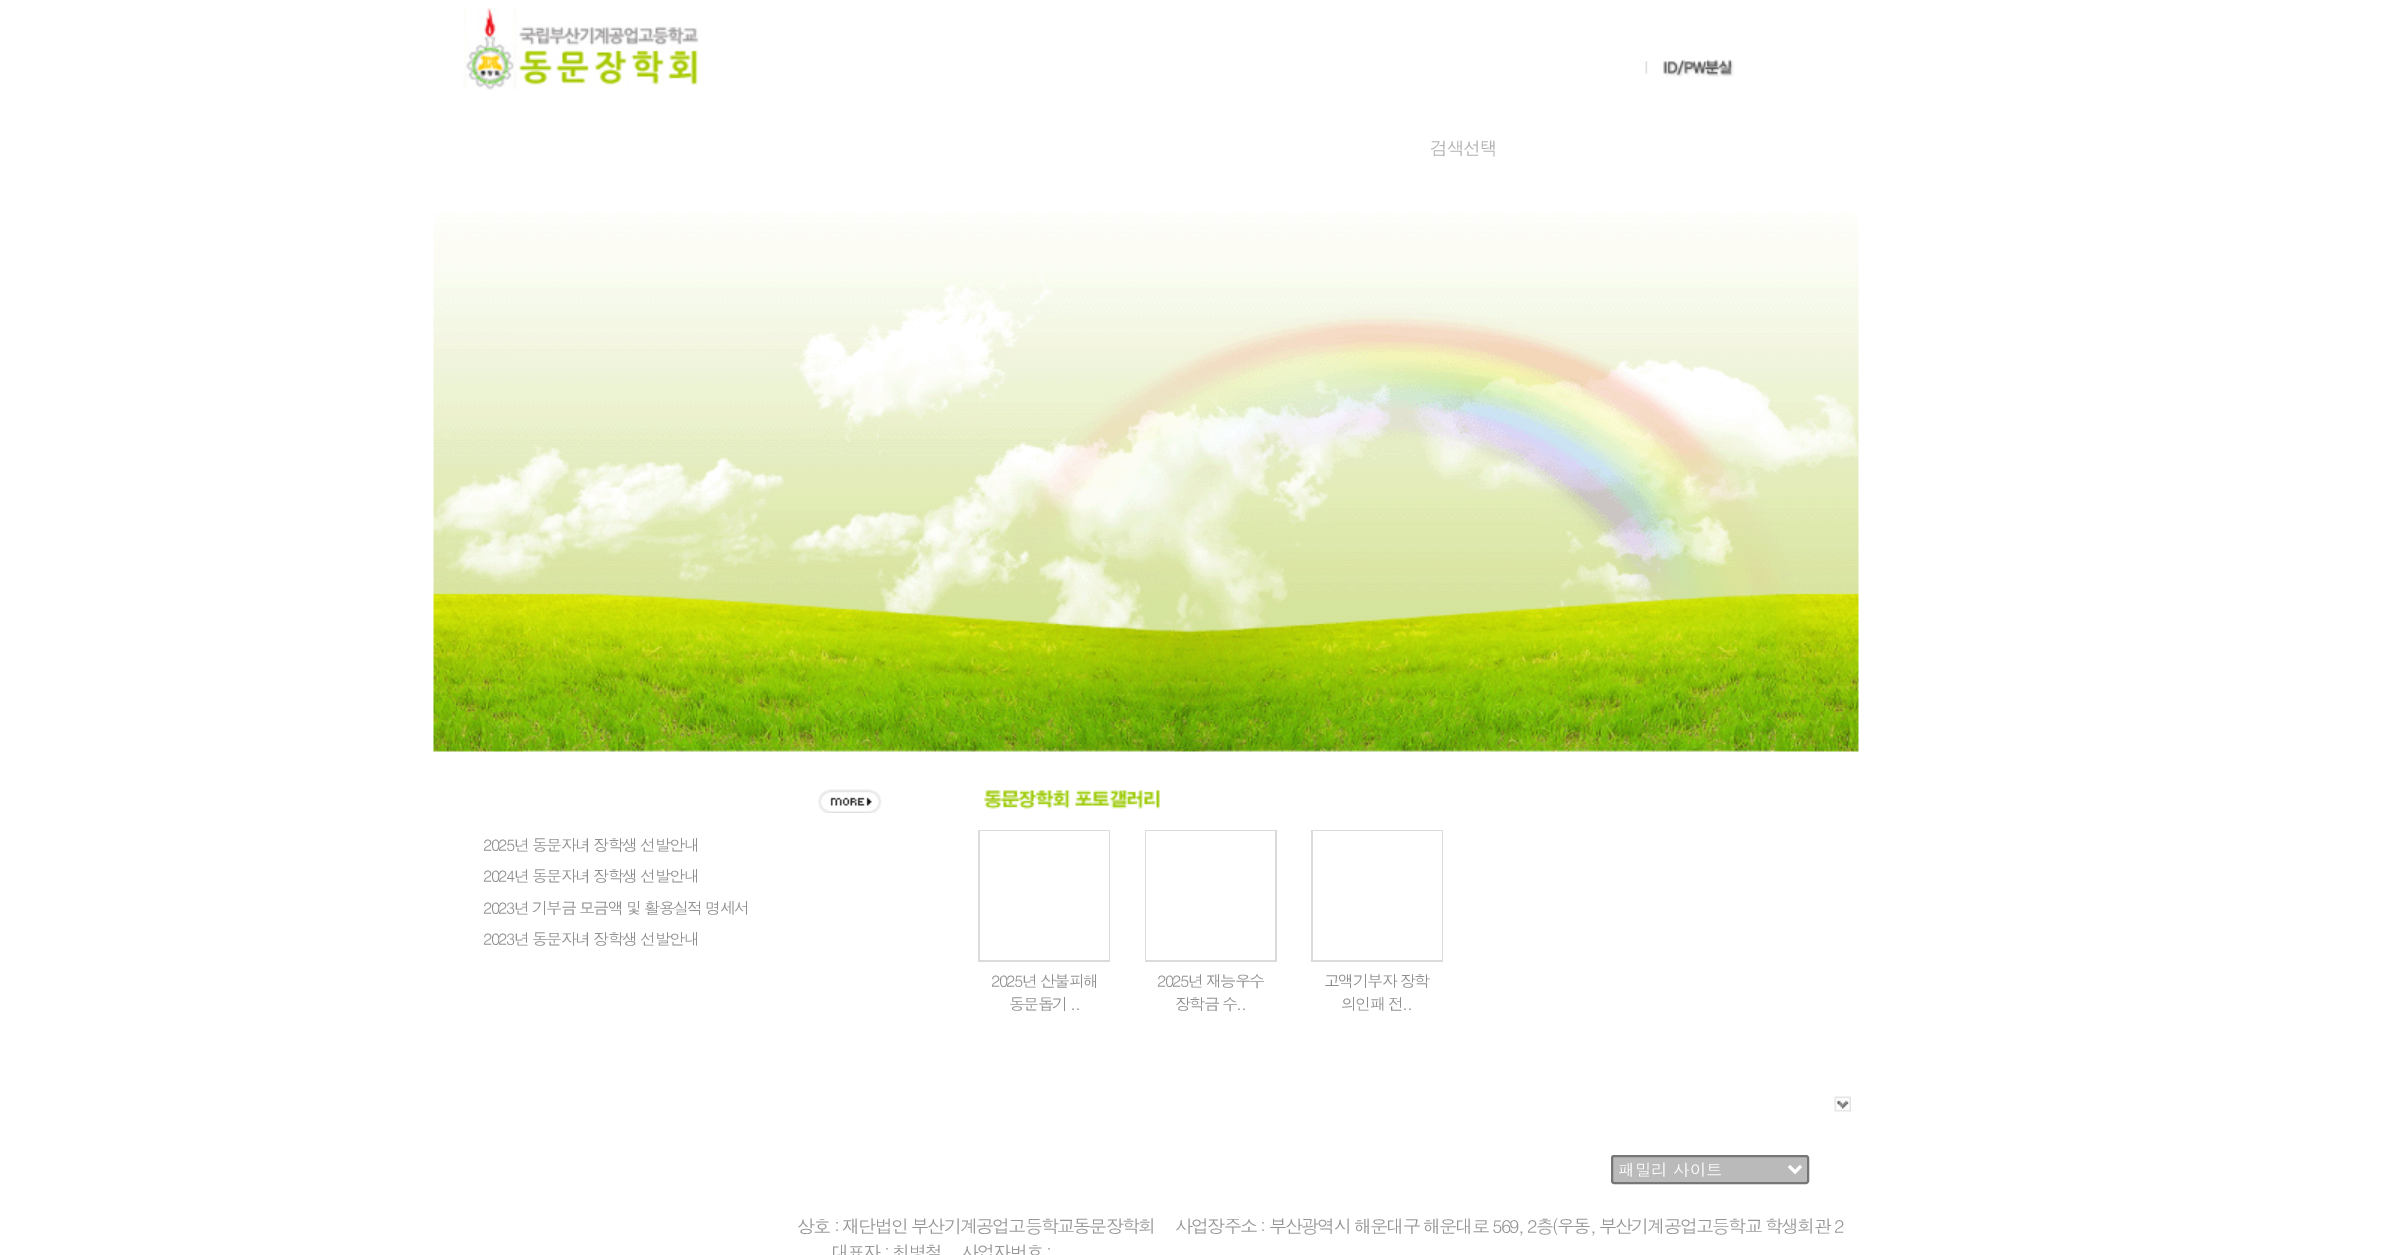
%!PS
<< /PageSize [2386 1255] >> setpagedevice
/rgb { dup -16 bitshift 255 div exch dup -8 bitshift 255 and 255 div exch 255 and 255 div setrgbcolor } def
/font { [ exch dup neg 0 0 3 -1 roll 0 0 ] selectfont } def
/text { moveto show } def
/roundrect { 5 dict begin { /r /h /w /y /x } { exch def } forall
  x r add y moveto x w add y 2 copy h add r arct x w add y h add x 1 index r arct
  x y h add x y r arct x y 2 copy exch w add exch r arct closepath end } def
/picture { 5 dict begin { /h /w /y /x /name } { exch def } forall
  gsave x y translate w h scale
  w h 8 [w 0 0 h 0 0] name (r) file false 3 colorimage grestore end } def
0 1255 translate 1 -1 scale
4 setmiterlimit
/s1 { /Dotum-Regular 16.5 font 16#FFFFFF rgb } def
16#FFFFFF rgb
0 0 2386 1255 rectfill
(pic1.raw) 463 7 236 83 picture
(pic2.raw) 1645 59 89 18 picture
/Dotum-Regular 18 font
16#AFAFAF rgb
1430 155 moveto -1.5 0 (검색선택) ashow
(pic3.raw) 433 213 1426 539 picture
(pic4.raw) 818 789 64 24 picture
/Dotum-Regular 16 font
16#8E8E8E rgb
483 851 moveto -1.6 0 (2025년 동문자녀 장학생 선발안내) ashow
483 882 moveto -1.6 0 (2024년 동문자녀 장학생 선발안내) ashow
483 914 moveto -1.6 0 (2023년 기부금 모금액 및 활용실적 명세서) ashow
483 945 moveto -1.6 0 (2023년 동문자녀 장학생 선발안내) ashow
(pic5.raw) 984 790 176 19 picture
16#DBDBDB rgb
978 830 132 132 rectfill
16#FFFFFF rgb
980 831 129 129 rectfill
16#8E8E8E rgb
991 987 moveto -1.6 0 (2025년 산불피해) ashow
1009 1010 moveto -1.6 0 (동문돕기 ..) ashow
16#DBDBDB rgb
1145 830 132 132 rectfill
16#FFFFFF rgb
1146 831 129 129 rectfill
16#8E8E8E rgb
1157 987 moveto -1.6 0 (2025년 재능우수) ashow
1175 1010 moveto -1.6 0 (장학금 수..) ashow
16#DBDBDB rgb
1311 830 132 132 rectfill
16#FFFFFF rgb
1313 831 129 129 rectfill
16#8E8E8E rgb
1324 987 moveto -1.6 0 (고액기부자 장학) ashow
1341 1010 moveto -1.6 0 (의인패 전..) ashow
(pic6.raw) 1834 1096 17 16 picture
16#BABABA rgb
1612 1156 196 27 2 roundrect gsave fill grestore
16#767676 rgb
2 setlinewidth
stroke
16#FFFFFF rgb
3 setlinewidth
1789 1166 moveto 1795 1172 lineto 1801 1166 lineto stroke
s1
(패밀리 사이트) 1618 1176 text
/Dotum-Regular 18 font
16#959595 rgb
797 1233 moveto -1.8 0 (상호 : 재단법인 부산기계공업고등학교동문장학회) ashow
1175 1233 moveto -1.8 0 (사업장주소 : 부산광역시 해운대구 해운대로 569, 2층\(우동, 부산기계공업고등학교 학생회관 2) ashow
831 1259 moveto -1.8 0 (대표자 : 최병철) ashow
961 1259 moveto -1.8 0 (사업자번호 :) ashow
showpage
